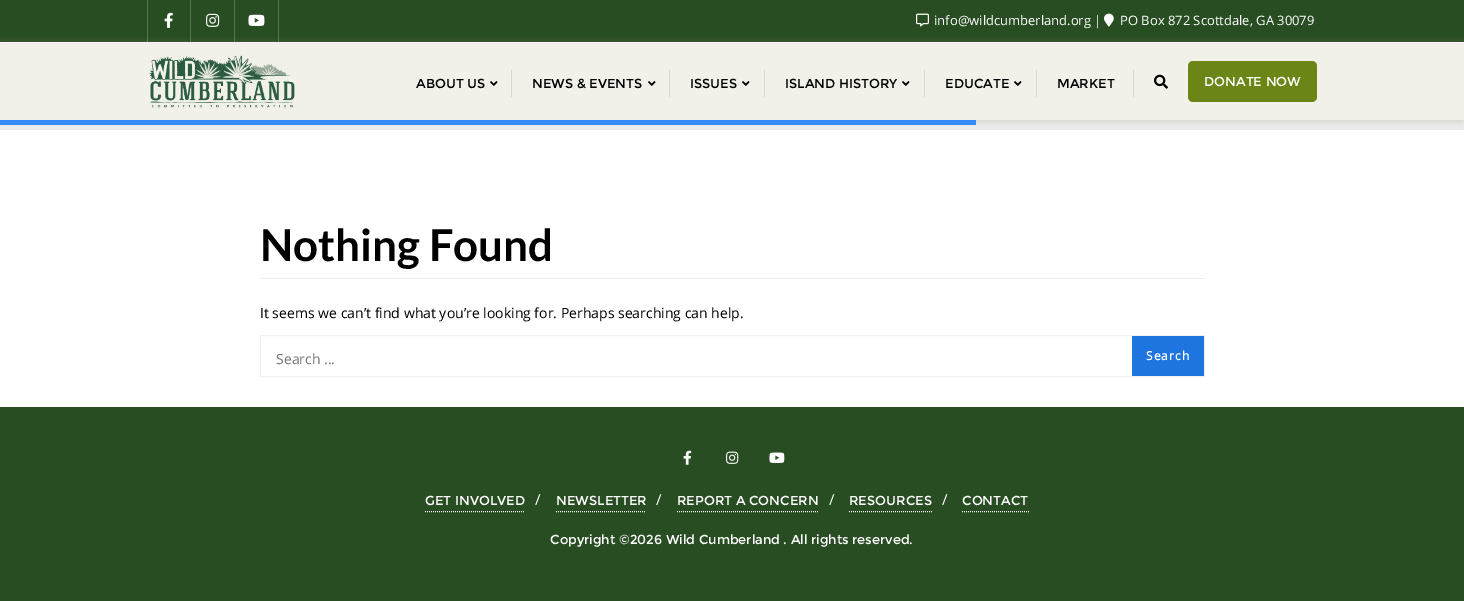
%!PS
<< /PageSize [1464 601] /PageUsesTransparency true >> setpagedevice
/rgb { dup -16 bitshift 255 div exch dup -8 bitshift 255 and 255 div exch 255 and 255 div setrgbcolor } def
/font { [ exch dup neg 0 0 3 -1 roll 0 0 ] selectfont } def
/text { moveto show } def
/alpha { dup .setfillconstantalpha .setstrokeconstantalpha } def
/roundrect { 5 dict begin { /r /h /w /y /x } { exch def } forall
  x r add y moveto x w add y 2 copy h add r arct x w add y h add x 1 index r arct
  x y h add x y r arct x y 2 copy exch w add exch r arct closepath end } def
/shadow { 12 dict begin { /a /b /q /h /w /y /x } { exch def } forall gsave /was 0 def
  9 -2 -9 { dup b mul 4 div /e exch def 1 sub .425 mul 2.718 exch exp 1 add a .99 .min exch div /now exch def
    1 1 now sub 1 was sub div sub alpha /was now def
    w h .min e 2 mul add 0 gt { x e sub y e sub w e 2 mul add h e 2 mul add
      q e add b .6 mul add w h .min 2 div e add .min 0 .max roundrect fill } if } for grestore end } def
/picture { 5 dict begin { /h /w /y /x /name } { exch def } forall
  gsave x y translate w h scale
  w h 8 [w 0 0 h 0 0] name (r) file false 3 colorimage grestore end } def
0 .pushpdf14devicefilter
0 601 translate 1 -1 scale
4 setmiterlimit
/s1 { /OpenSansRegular-Regular 13 font 16#FFFFFF rgb } def
/s2 { /Montserrat-Regular 13 font 16#000000 rgb } def
/s3 { /Montserrat-Regular 13 font 16#FFFFFF rgb } def
/s4 { /Lato-Bold 44 font 16#000000 rgb } def
/s5 { /OpenSansRegular-Regular 14 font 16#000000 rgb } def
/s6 { /OpenSansRegular-Regular 14 font 16#757575 rgb } def
/s7 { /OpenSansRegular-Regular 15 font 16#FFFFFF rgb } def
16#FFFFFF rgb
0 0 1464 601 rectfill
16#EEEEEE rgb
0 120 1464 10 rectfill
16#294D22 rgb
0 0 1464 42 rectfill
16#587453 rgb
190 0 1 42 rectfill
147 0 1 42 rectfill
(pic1.raw) 164 12 9 16 picture
234 0 1 42 rectfill
(pic2.raw) 206 13 14 14 picture
278 0 1 42 rectfill
(pic3.raw) 248 14 17 12 picture
(pic4.raw) 916 13 13 14 picture
s1
(info@wildcumberland.org) 934 25 text
(|) 1094 25 text
(pic5.raw) 1104 13 10 14 picture
(PO Box 872 Scottdale, GA 30079) 1120 25 text
16#BDB6A4 rgb
3 48 1458 71 0 5 1 shadow
16#F1F1E9 rgb
0 43 1464 77 rectfill
(pic6.raw) 149 55 146 53 picture
s2
(ABOUT US) 416 88 text
(pic7.raw) 490 81 8 5 picture
16#D8D8D8 rgb
511 70 1 27 rectfill
s2
(NEWS & EVENTS) 532 88 text
(pic7.raw) 648 81 8 5 picture
16#D8D8D8 rgb
669 70 1 27 rectfill
s2
(ISSUES) 690 88 text
(pic7.raw) 742 81 8 5 picture
16#D8D8D8 rgb
764 70 1 27 rectfill
s2
(ISLAND HISTORY) 785 88 text
(pic7.raw) 902 81 8 5 picture
16#D8D8D8 rgb
924 70 1 27 rectfill
s2
(EDUCATE) 945 88 text
(pic7.raw) 1014 81 8 5 picture
16#D8D8D8 rgb
1036 70 1 27 rectfill
s2
(MARKET) 1057 88 text
16#D8D8D8 rgb
1133 70 1 27 rectfill
(pic8.raw) 1154 74 14 15 picture
16#6B8616 rgb
1188 61 129 41 5 roundrect fill
s3
(DONATE NOW) 1204 86 text
16#358BF4 rgb
0 120 976 5 rectfill
16#EEEEEE rgb
260 278 945 1 rectfill
s4
(Nothing Found) 260 261 text
s5
(It seems we can’t find what you’re looking for. Perhaps searching can help.) 260 318 text
16#F1F1F1 rgb
260.5 335.5 944 41 rectstroke
s6
(Search ...) 276 364 text
16#1E75E0 rgb
1132 336 72 40 rectfill
/OpenSansRegular-Bold 12 font
16#FFFFFF rgb
1146 360 moveto 1 0 (Search) ashow
16#294D22 rgb
0 407 1464 194 rectfill
(pic9.raw) 683 450 9 15 picture
(pic10.raw) 726 451 13 13 picture
(pic11.raw) 769 452 16 11 picture
16#FFFFFF rgb
[1 1] 0 setdash
425 511.5 moveto 525 511.5 lineto stroke
s3
(GET INVOLVED) 425 505 text
s7
(/) 535 505 text
556 511.5 moveto 646 511.5 lineto stroke
s3
(NEWSLETTER) 556 505 text
s7
(/) 656 505 text
677 511.5 moveto 819 511.5 lineto stroke
s3
(REPORT A CONCERN) 677 505 text
s7
(/) 829 505 text
849 511.5 moveto 932 511.5 lineto stroke
s3
(RESOURCES) 849 505 text
s7
(/) 942 505 text
962 511.5 moveto 1029 511.5 lineto stroke
s3
(CONTACT) 962 505 text
(Copyright ©2026 Wild Cumberland . All rights reserved.) 550 544 text
.poppdf14devicefilter showpage
